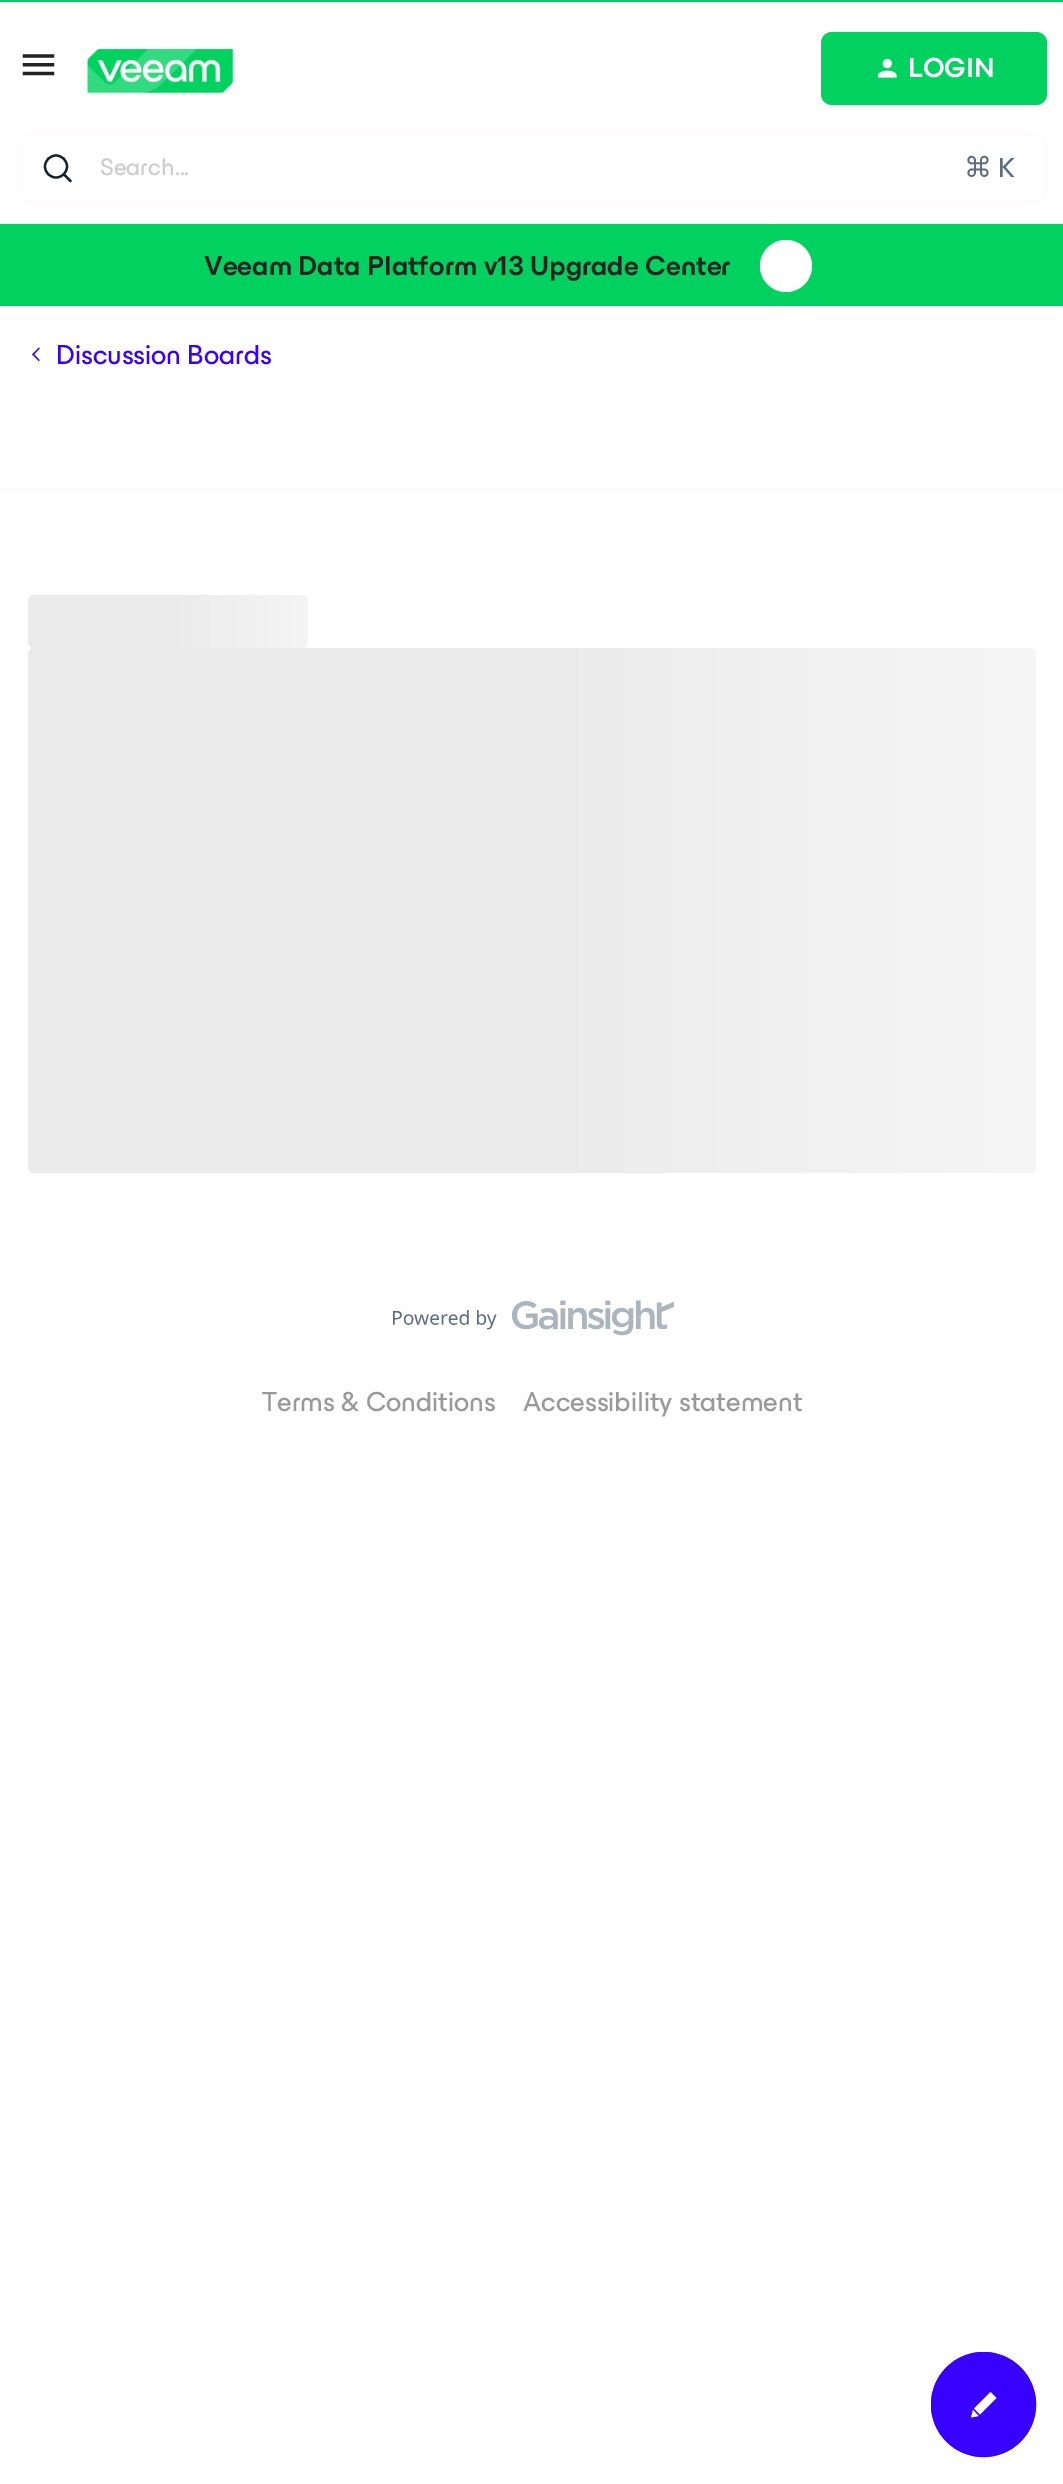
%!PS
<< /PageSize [1063 2484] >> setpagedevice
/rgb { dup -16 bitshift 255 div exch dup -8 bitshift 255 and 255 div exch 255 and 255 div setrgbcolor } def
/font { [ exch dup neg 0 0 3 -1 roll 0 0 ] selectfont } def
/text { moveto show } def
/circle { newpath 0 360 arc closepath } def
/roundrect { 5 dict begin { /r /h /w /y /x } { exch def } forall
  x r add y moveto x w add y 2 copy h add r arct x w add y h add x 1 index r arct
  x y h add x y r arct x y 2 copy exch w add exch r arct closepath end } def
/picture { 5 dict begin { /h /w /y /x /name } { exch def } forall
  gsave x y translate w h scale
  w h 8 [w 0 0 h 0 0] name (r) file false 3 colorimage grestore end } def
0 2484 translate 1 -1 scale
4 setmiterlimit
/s1 { /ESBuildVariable-SemiBold 28 font 16#FFFFFF rgb } def
/s2 { /ESBuildVariable-Regular 24.5 font 16#CDCDCD rgb } def
/s3 { /DejaVuSans-Regular 28 font 16#5F6C7A rgb } def
/s4 { /ESBuildVariable-Regular 28 font 16#5F6C7A rgb } def
/s5 { /ESBuildVariable-SemiBold 28 font 16#232323 rgb } def
/s6 { /ESBuildVariable-Regular 28 font 16#3700FF rgb } def
/s7 { /ESBuildVariable-Regular 28 font 16#999999 rgb } def
16#FFFFFF rgb
0 0 1063 2484 rectfill
16#00D15F rgb
0 0 1063 2 rectfill
0 224 1063 82 rectfill
(pic1.raw) 22 54 33 22 picture
(pic2.raw) 87 49 146 44 picture
821 32 226 73 11 roundrect fill
(pic3.raw) 877 58 20 20 picture
s1
(LOGIN) 908 77 text
16#FFFBFB rgb
2 setlinewidth
19 134 1027 68 13 roundrect stroke
16#181F26 rgb
2.2 setlinewidth
56 166.5 11 circle stroke
1 setlinecap
64 174.5 moveto 70.5 181 lineto stroke
s2
(Search...) 100 175 text
s3
(⌘) 964 177 text
s4
(K) 998 177 text
s5
(Veeam Data Platform v13 Upgrade Center) 204 275 text
16#FFFFFF rgb
786 266 26 circle fill
(pic4.raw) 32 347 8 15 picture
s6
(Discussion Boards) 56 364 text
16#FFFBFB rgb
0 488 1063 2 rectfill
0 1215 1063 2 rectfill
gsave 28 595 280 53 7 roundrect clip newpath
<< /ShadingType 2 /ColorSpace /DeviceRGB /Coords [28 621 588 621] /Extend [true true] /Function << /FunctionType 3 /Domain [0 1] /Functions [<< /FunctionType 2 /Domain [0 1] /C0 [0.922 0.922 0.922] /C1 [0.922 0.922 0.922] /N 1 >> << /FunctionType 2 /Domain [0 1] /C0 [0.922 0.922 0.922] /C1 [0.961 0.961 0.961] /N 1 >> << /FunctionType 2 /Domain [0 1] /C0 [0.961 0.961 0.961] /C1 [0.922 0.922 0.922] /N 1 >> << /FunctionType 2 /Domain [0 1] /C0 [0.922 0.922 0.922] /C1 [0.922 0.922 0.922] /N 1 >>] /Bounds [0.25 0.5 0.75] /Encode [0 1 0 1 0 1 0 1] >> >> shfill grestore
gsave 28 648 1008 525 7 roundrect clip newpath
<< /ShadingType 2 /ColorSpace /DeviceRGB /Coords [28 910 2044 910] /Extend [true true] /Function << /FunctionType 3 /Domain [0 1] /Functions [<< /FunctionType 2 /Domain [0 1] /C0 [0.922 0.922 0.922] /C1 [0.922 0.922 0.922] /N 1 >> << /FunctionType 2 /Domain [0 1] /C0 [0.922 0.922 0.922] /C1 [0.965 0.965 0.965] /N 1 >> << /FunctionType 2 /Domain [0 1] /C0 [0.965 0.965 0.965] /C1 [0.922 0.922 0.922] /N 1 >> << /FunctionType 2 /Domain [0 1] /C0 [0.922 0.922 0.922] /C1 [0.922 0.922 0.922] /N 1 >>] /Bounds [0.25 0.5 0.75] /Encode [0 1 0 1 0 1 0 1] >> >> shfill grestore
(pic5.raw) 393 1300 281 36 picture
s7
(Terms & Conditions) 262 1411 text
(Accessibility statement) 523 1411 text
16#3700FF rgb
983.5 2404.5 52.5 circle fill
16#FFFFFF rgb
990.5 2392 moveto 974 2408.5 lineto 980 2414.5 lineto 996.5 2398 lineto closepath fill
971 2417.5 moveto 973 2410 lineto 978.5 2416 lineto closepath fill
16#3700FF rgb
4 setlinewidth
0 setlinecap
983.5 2404.5 50.5 circle stroke
showpage
